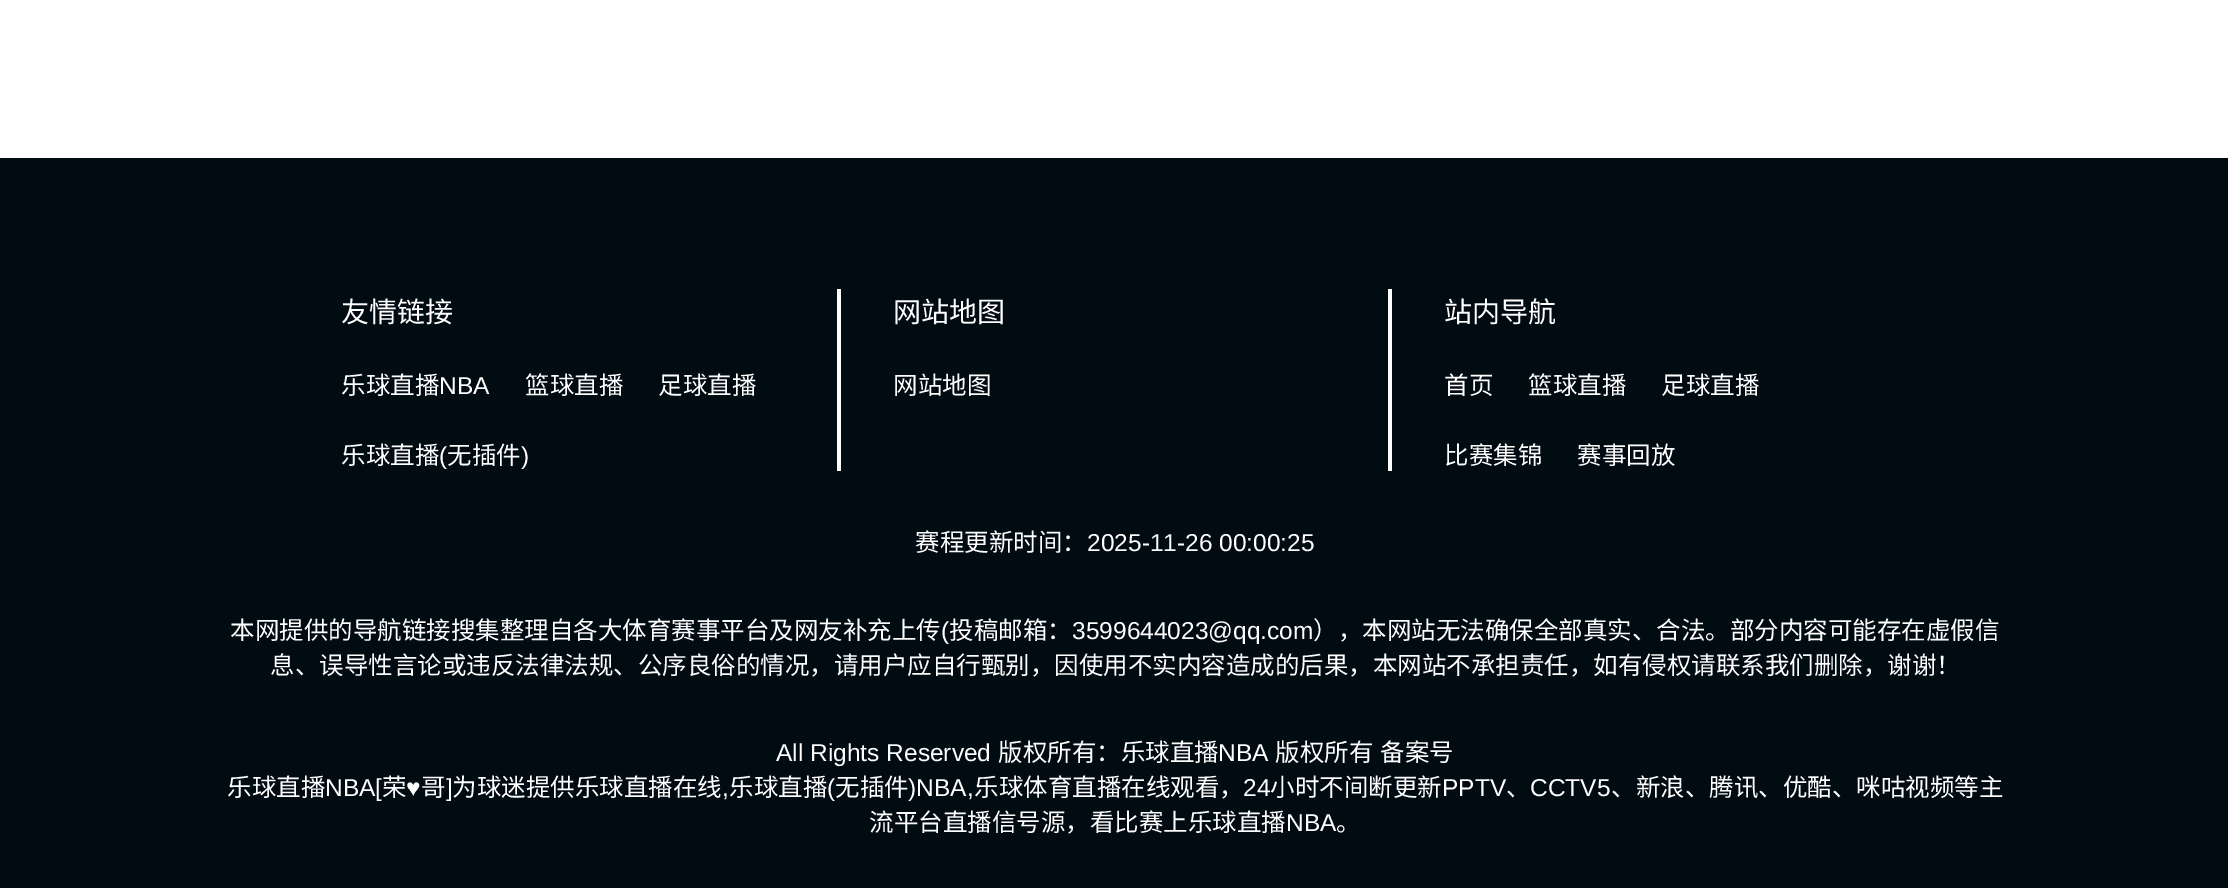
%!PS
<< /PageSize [2228 888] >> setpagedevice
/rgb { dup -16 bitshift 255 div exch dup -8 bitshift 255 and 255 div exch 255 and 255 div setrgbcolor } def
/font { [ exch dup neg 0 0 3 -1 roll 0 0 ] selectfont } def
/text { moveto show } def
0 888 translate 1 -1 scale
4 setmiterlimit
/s1 { /NotoSansCJKSC-Regular 28 font 16#FFFFFF rgb } def
/s2 { /NotoSansCJKSC-Regular 24.5 font 16#FFFFFF rgb } def
/s3 { /LiberationSans-Regular 24.5 font 16#FFFFFF rgb } def
16#FFFFFF rgb
0 0 2228 888 rectfill
16#010B12 rgb
0 158 2228 730 rectfill
16#FFFFFF rgb
837 289 4 182 rectfill
s1
(友情链接) 341 322 text
s2
(乐球直播) 341 394 text
s3
(NBA) 439 394 text
s2
(篮球直播) 525 394 text
(足球直播) 658 394 text
(乐球直播) 341 464 text
s3
(\() 439 464 text
s2
(无插件) 447 464 text
s3
(\)) 521 464 text
1388 289 4 182 rectfill
s1
(网站地图) 893 322 text
s2
(网站地图) 893 394 text
s1
(站内导航) 1444 322 text
s2
(首页) 1444 394 text
(篮球直播) 1528 394 text
(足球直播) 1661 394 text
(比赛集锦) 1444 464 text
(赛事回放) 1577 464 text
(赛程更新时间：) 915 551 text
s3
(2025-11-26 00:00:25) 1087 551 text
s2
(本网提供的导航链接搜集整理自各大体育赛事平台及网友补充上传) 230 639 text
s3
(\() 941 639 text
s2
(投稿邮箱：) 949 639 text
s3
(3599644023@qq.com) 1072 639 text
s2
(），本网站无法确保全部真实、合法。部分内容可能存在虚假信) 1313 639 text
(息、误导性言论或违反法律法规、公序良俗的情况，请用户应自行甄别，因使用不实内容造成的后果，本网站不承担责任，如有侵权请联系我们删除，谢谢！) 270 674 text
s3
(All Rights Reserved) 776 761 text
s2
(版权所有：乐球直播) 998 761 text
s3
(NBA) 1218 761 text
s2
(版权所有) 1275 761 text
(备案号) 1380 761 text
(乐球直播) 227 796 text
s3
(NBA[) 325 796 text
s2
(荣) 382 796 text
s3
(♥) 406 796 text
s2
(哥) 421 796 text
s3
(]) 446 796 text
s2
(为球迷提供乐球直播在线) 452 796 text
s3
(,) 722 796 text
s2
(乐球直播) 729 796 text
s3
(\() 827 796 text
s2
(无插件) 835 796 text
s3
(\)NBA,) 908 796 text
s2
(乐球体育直播在线观看，) 974 796 text
s3
(24) 1243 796 text
s2
(小时不间断更新) 1270 796 text
s3
(PPTV) 1442 796 text
s2
(、) 1506 796 text
s3
(CCTV5) 1530 796 text
s2
(、新浪、腾讯、优酷、咪咕视频等主) 1611 796 text
(流平台直播信号源，看比赛上乐球直播) 869 831 text
s3
(NBA) 1286 831 text
s2
(。) 1336 831 text
showpage
